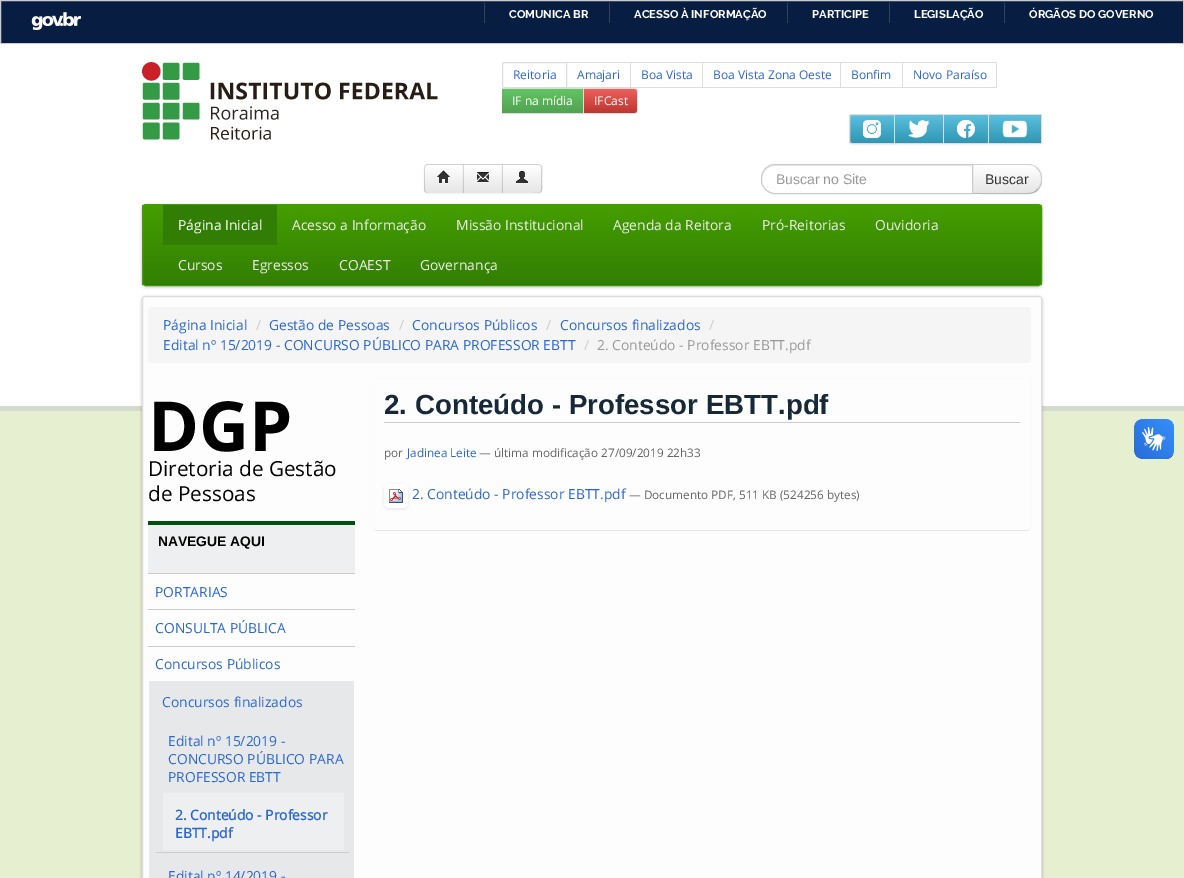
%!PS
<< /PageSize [1184 878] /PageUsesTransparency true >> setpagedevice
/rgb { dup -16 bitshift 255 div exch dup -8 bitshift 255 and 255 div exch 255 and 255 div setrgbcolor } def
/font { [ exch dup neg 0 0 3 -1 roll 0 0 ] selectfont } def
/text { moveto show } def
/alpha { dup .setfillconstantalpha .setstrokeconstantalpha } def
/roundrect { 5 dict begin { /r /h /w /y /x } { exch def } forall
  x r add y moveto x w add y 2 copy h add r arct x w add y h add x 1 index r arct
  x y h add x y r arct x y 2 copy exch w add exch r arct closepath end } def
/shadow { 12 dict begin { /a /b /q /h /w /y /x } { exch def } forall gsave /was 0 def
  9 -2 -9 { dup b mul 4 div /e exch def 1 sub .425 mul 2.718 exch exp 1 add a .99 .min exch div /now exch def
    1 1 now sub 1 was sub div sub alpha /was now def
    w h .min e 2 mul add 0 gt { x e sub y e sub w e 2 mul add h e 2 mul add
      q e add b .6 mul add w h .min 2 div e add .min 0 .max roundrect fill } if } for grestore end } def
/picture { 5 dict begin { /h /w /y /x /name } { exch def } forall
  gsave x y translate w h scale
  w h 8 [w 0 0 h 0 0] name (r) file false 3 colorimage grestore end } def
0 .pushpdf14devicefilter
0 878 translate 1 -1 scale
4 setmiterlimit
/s1 { /Raleway-Bold 11.25 font 16#FFFFFF rgb } def
/s2 { /OpenSans-Regular 12 font 16#2C67CD rgb } def
/s3 { /OpenSans-Regular 12 font 16#FFFFFF rgb } def
/s4 { /LiberationSans-Regular 14 font 16#999999 rgb } def
/s5 { /LiberationSans-Regular 14 font 16#333333 rgb } def
/s6 { /OpenSans-Regular 13.85 font 16#FFFFFF rgb } def
/s7 { /OpenSans-Regular 13.85 font 16#EEEEEE rgb } def
/s8 { /OpenSans-Regular 13.85 font 16#2C67CD rgb } def
/s9 { /OpenSans-Regular 13.85 font 16#CCCCCC rgb } def
/s10 { /OpenSans-Regular 13.85 font 16#999999 rgb } def
/s11 { /OpenSans-Bold 69 font 16#000000 rgb } def
/s12 { /OpenSans-Regular 20.75 font 16#000000 rgb } def
/s13 { /LiberationSans-Bold 13.85 font 16#000000 rgb } def
/s14 { /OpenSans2-Bold 13.85 font 16#2C67CD rgb } def
/s15 { /LiberationSans-Bold 27.7 font 16#172938 rgb } def
/s16 { /OpenSans-Regular 11.75 font 16#666666 rgb } def
/s17 { /OpenSans-Regular 11.75 font 16#2C67CD rgb } def
16#071D41 rgb
0 0 1184 878 rectfill
16#CCCCCC rgb
0.5 0.5 1183 43 rectstroke
(pic1.raw) 31 12 50 18 picture
16#32425B rgb
484 3 1 20 rectfill
s1
(COMUNICA BR) 509 18 text
16#32425B rgb
609 3 1 20 rectfill
s1
(ACESSO À INFORMAÇÃO) 634 18 text
16#32425B rgb
787 3 1 20 rectfill
s1
(PARTICIPE) 812 18 text
16#32425B rgb
889 3 1 20 rectfill
s1
(LEGISLAÇÃO) 914 18 text
16#32425B rgb
1004 3 1 20 rectfill
s1
(ÓRGÃOS DO GOVERNO) 1029 18 text
16#E7EFD1 rgb
0 411 1184 467 rectfill
16#FFFFFF rgb
0 44 1184 362 rectfill
16#D4DBCE rgb
0 406 1184 5 rectfill
(pic2.raw) 142 62 296 78 picture
16#DDDDDD rgb
505 62.5 moveto 566.5 62.5 lineto 566.5 87.5 lineto 505 87.5 lineto 503.5 87.5 502.5 86.5 502.5 85 curveto 502.5 65 lineto 502.5 63.5 503.5 62.5 505 62.5 curveto closepath stroke
s2
(Reitoria) 513 79 text
16#DDDDDD rgb
567 62 430 1 rectfill
630 62 1 26 rectfill
567 87 64 1 rectfill
s2
(Amajari) 577 79 text
16#DDDDDD rgb
702 62 1 26 rectfill
631 87 72 1 rectfill
s2
(Boa Vista) 641 79 text
16#DDDDDD rgb
840 62 1 26 rectfill
703 87 138 1 rectfill
s2
(Boa Vista Zona Oeste) 713 79 text
16#DDDDDD rgb
902 62 1 26 rectfill
841 87 62 1 rectfill
s2
(Bonfim) 851 79 text
16#DDDDDD rgb
996 62 1 26 rectfill
903 87 94 1 rectfill
s2
(Novo Paraíso) 913 79 text
gsave 502 89 moveto 583 89 lineto 583 113 lineto 502 113 lineto closepath clip newpath
<< /ShadingType 2 /ColorSpace /DeviceRGB /Coords [543 89 543 113] /Extend [true true] /Function << /FunctionType 2 /Domain [0 1] /C0 [0.384 0.769 0.384] /C1 [0.318 0.639 0.318] /N 1 >> >> shfill grestore
16#DDDDDD rgb
502 88 82 1 rectfill
583 88 1 26 rectfill
502 113 82 1 rectfill
s3
(IF na mídia) 512 105 text
gsave 584 89 moveto 635 89 lineto 636 89 637 90 637 91 curveto 637 111 lineto 637 112 636 113 635 113 curveto 584 113 lineto closepath clip newpath
<< /ShadingType 2 /ColorSpace /DeviceRGB /Coords [611 89 611 113] /Extend [true true] /Function << /FunctionType 2 /Domain [0 1] /C0 [0.933 0.373 0.357] /C1 [0.741 0.212 0.184] /N 1 >> >> shfill grestore
16#DDDDDD rgb
584 88 moveto 635 88 lineto 637 88 638 89 638 91 curveto 638 111 lineto 638 113 637 114 635 114 curveto 584 114 lineto closepath 584 89 moveto 635 89 lineto 636 89 637 90 637 91 curveto 637 111 lineto 637 112 636 113 635 113 curveto 584 113 lineto closepath eofill
s3
(IFCast) 594 105 text
16#000000 rgb
849 115 193 30 4 1 0.05 shadow
gsave
852 114 moveto 895 114 lineto 895 144 lineto 852 144 lineto 850.5 144 849 142.5 849 141 curveto 849 117 lineto 849 115.5 850.5 114 852 114 curveto closepath clip newpath
gsave 849 115 moveto 894 115 lineto 894 143 lineto 849 143 lineto closepath clip newpath
<< /ShadingType 2 /ColorSpace /DeviceRGB /Coords [872 115 872 143] /Extend [true true] /Function << /FunctionType 2 /Domain [0 1] /C0 [0.357 0.753 0.871] /C1 [0.184 0.588 0.706] /N 1 >> >> shfill grestore
grestore
16#DDDDDD rgb
852 114.5 moveto 894.5 114.5 lineto 894.5 143.5 lineto 852 143.5 lineto 850.5 143.5 849.5 142.5 849.5 141 curveto 849.5 117 lineto 849.5 115.5 850.5 114.5 852 114.5 curveto closepath stroke
(pic3.raw) 863 120 18 18 picture
gsave 895 115 moveto 943 115 lineto 943 143 lineto 895 143 lineto closepath clip newpath
<< /ShadingType 2 /ColorSpace /DeviceRGB /Coords [919 115 919 143] /Extend [true true] /Function << /FunctionType 2 /Domain [0 1] /C0 [0.357 0.753 0.871] /C1 [0.184 0.588 0.706] /N 1 >> >> shfill grestore
895 114 147 1 rectfill
943 114 1 30 rectfill
895 143 49 1 rectfill
(pic4.raw) 908 120 22 18 picture
gsave 944 115 moveto 988 115 lineto 988 143 lineto 944 143 lineto closepath clip newpath
<< /ShadingType 2 /ColorSpace /DeviceRGB /Coords [966 115 966 143] /Extend [true true] /Function << /FunctionType 2 /Domain [0 1] /C0 [0.357 0.753 0.871] /C1 [0.184 0.588 0.706] /N 1 >> >> shfill grestore
988 114 1 30 rectfill
944 143 45 1 rectfill
(pic5.raw) 957 120 18 18 picture
gsave 989 115 moveto 1041 115 lineto 1041 143 lineto 989 143 lineto closepath clip newpath
<< /ShadingType 2 /ColorSpace /DeviceRGB /Coords [1015 115 1015 143] /Extend [true true] /Function << /FunctionType 2 /Domain [0 1] /C0 [0.357 0.753 0.871] /C1 [0.184 0.588 0.706] /N 1 >> >> shfill grestore
1041 114 1 30 rectfill
989 143 53 1 rectfill
(pic6.raw) 1002 120 26 18 picture
16#000000 rgb
424 165 40 29 4 1 0.05 shadow
16#F5F5F5 rgb
428 164 moveto 464 164 lineto 464 193 lineto 428 193 lineto 426 193 424 191 424 189 curveto 424 168 lineto 424 166 426 164 428 164 curveto closepath fill
gsave
428 164 moveto 464 164 lineto 464 193 lineto 428 193 lineto 426 193 424 191 424 189 curveto 424 168 lineto 424 166 426 164 428 164 curveto closepath clip newpath
gsave 424 165 moveto 464 165 lineto 464 193 lineto 428 193 lineto 426 193 424 191 424 189 curveto closepath clip newpath
<< /ShadingType 2 /ColorSpace /DeviceRGB /Coords [444 165 444 193] /Extend [true true] /Function << /FunctionType 2 /Domain [0 1] /C0 [1 1 1] /C1 [0.902 0.902 0.902] /N 1 >> >> shfill grestore
grestore
0.15 alpha
16#000000 rgb
428 164 moveto 464 164 lineto 464 193 lineto 428 193 lineto 426 193 424 191 424 189 curveto 424 168 lineto 424 166 426 164 428 164 curveto closepath 428 165 moveto 463 165 lineto 463 193 lineto 428 193 lineto 426 193 425 191 425 189 curveto 425 168 lineto 425 166 426 165 428 165 curveto closepath eofill
1 alpha
(pic7.raw) 437 170 13 14 picture
463 165 40 29 0 1 0.05 shadow
16#F5F5F5 rgb
463 164 1 1 rectfill
gsave 463 165 moveto 502 165 lineto 502 193 lineto 463 193 lineto closepath clip newpath
<< /ShadingType 2 /ColorSpace /DeviceRGB /Coords [483 165 483 193] /Extend [true true] /Function << /FunctionType 2 /Domain [0 1] /C0 [1 1 1] /C1 [0.902 0.902 0.902] /N 1 >> >> shfill grestore
16#D0D0D0 rgb
463 164 moveto 503 164 lineto 502 165 lineto 464 165 lineto closepath fill
0.15 alpha
16#000000 rgb
463 193 moveto 463 164 lineto 464 165 lineto 464 193 lineto closepath fill
1 alpha
(pic8.raw) 477 172 12 11 picture
502 165 40 29 4 1 0.05 shadow
16#F5F5F5 rgb
502 164 moveto 538 164 lineto 540 164 542 166 542 168 curveto 542 189 lineto 542 191 540 193 538 193 curveto 502 193 lineto closepath fill
gsave
502 164 moveto 538 164 lineto 540 164 542 166 542 168 curveto 542 189 lineto 542 191 540 193 538 193 curveto 502 193 lineto closepath clip newpath
gsave 502 165 moveto 542 165 lineto 542 189 lineto 542 191 540 193 538 193 curveto 502 193 lineto closepath clip newpath
<< /ShadingType 2 /ColorSpace /DeviceRGB /Coords [522 165 522 193] /Extend [true true] /Function << /FunctionType 2 /Domain [0 1] /C0 [1 1 1] /C1 [0.902 0.902 0.902] /N 1 >> >> shfill grestore
grestore
0.15 alpha
16#000000 rgb
502 164 moveto 532 164 lineto 545 164 542 166 542 178 curveto 542 191 545 193 532 193 curveto 502 193 lineto closepath 503 165 moveto 538 165 lineto 540 165 541 166 541 168 curveto 541 189 lineto 541 191 540 193 538 193 curveto 503 193 lineto closepath eofill
1 alpha
(pic9.raw) 516 171 12 13 picture
972 165 70 30 14 1 0.05 shadow
16#F5F5F5 rgb
972 164 moveto 1028 164 lineto 1035.5 164 1042 170.5 1042 178 curveto 1042 180 lineto 1042 187.5 1035.5 194 1028 194 curveto 972 194 lineto closepath fill
gsave
972 164 moveto 1028 164 lineto 1035.5 164 1042 170.5 1042 178 curveto 1042 180 lineto 1042 187.5 1035.5 194 1028 194 curveto 972 194 lineto closepath clip newpath
gsave 973 165 moveto 1042 165 lineto 1042 193 lineto 973 193 lineto closepath clip newpath
<< /ShadingType 2 /ColorSpace /DeviceRGB /Coords [1007 165 1007 193] /Extend [true true] /Function << /FunctionType 2 /Domain [0 1] /C0 [1 1 1] /C1 [0.902 0.902 0.902] /N 1 >> >> shfill grestore
grestore
0.15 alpha
16#000000 rgb
972 164 moveto 973 165 lineto 1028 165 lineto 1032 165 1035 166 1037 169 curveto 1038 168 lineto 1036 166 1032 164 1028 164 curveto closepath fill
1042 180 moveto 1042 175.5 1041.5 171.5 1038 168 curveto 1037 169 lineto 1042.5 174 1042.5 184 1037 189 curveto 1038 190 lineto 1040.5 187.5 1042 184 1042 180 curveto closepath fill
0.25 alpha
1028 194 moveto 1032 194 1036 192 1038 190 curveto 1037 189 lineto 1035 192 1032 193 1028 193 curveto 973 193 lineto 972 194 lineto closepath fill
1 alpha
16#FFFFFF rgb
775 164 moveto 973 164 lineto 973 194 lineto 775 194 lineto 767.5 194 761 187.5 761 180 curveto 761 178 lineto 761 170.5 767.5 164 775 164 curveto closepath fill
16#ECECEC rgb
775 166 moveto 972 166 lineto 972 165 lineto 775 165 lineto 768 165 762 170 762 177 curveto 763 171 768 166 775 166 curveto closepath fill
16#CCCCCC rgb
775 164.5 moveto 972.5 164.5 lineto 972.5 193.5 lineto 775 193.5 lineto 767.5 193.5 761.5 187.5 761.5 180 curveto 761.5 178 lineto 761.5 170.5 767.5 164.5 775 164.5 curveto closepath stroke
s4
(Buscar no Site) 776 184 text
s5
(Buscar) 985 184 text
16#000000 rgb
142 205 900 82 4 1.5 0.25 shadow
gsave
142 204 900 82 4 roundrect clip newpath
gsave 142 205 moveto 1042 205 lineto 1042 285 lineto 142 285 lineto closepath clip newpath
<< /ShadingType 2 /ColorSpace /DeviceRGB /Coords [592 205 592 285] /Extend [true true] /Function << /FunctionType 2 /Domain [0 1] /C0 [0.271 0.62 0] /C1 [0.196 0.494 0.016] /N 1 >> >> shfill grestore
grestore
16#2D7104 rgb
143 281 moveto 143 283 144 285 146 285 curveto 1038 285 lineto 1040 285 1041 283 1041 281 curveto 1041 283 1040 284 1038 284 curveto 146 284 lineto 144 284 143 283 143 281 curveto closepath fill
16#459E00 rgb
142.5 204.5 899 81 3.5 roundrect stroke
16#327E04 rgb
163 205 114 40 rectfill
s6
(Página Inicial) 178 230 text
s7
(Acesso a Informação) 292 230 text
(Missão Institucional) 456 230 text
(Agenda da Reitora) 613 230 text
(Pró-Reitorias) 762 230 text
(Ouvidoria) 875 230 text
(Cursos) 178 270 text
(Egressos) 252 270 text
(COAEST) 339 270 text
(Governança) 420 270 text
16#000000 rgb
142 297 900 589 3 1.5 0.25 shadow
16#FDFDFD rgb
142.5 296.5 899 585 2.5 roundrect gsave fill grestore
16#DDDDDD rgb
stroke
16#F5F5F5 rgb
148 307 883 56 4 roundrect fill
s8
(Página Inicial) 163 330 text
s9
(/) 256 330 text
s8
(Gestão de Pessoas) 269 330 text
s9
(/) 399 330 text
s8
(Concursos Públicos) 412 330 text
s9
(/) 546 330 text
s8
(Concursos finalizados) 560 330 text
s9
(/) 709 330 text
s8
(Edital nº 15/2019 - CONCURSO PÚBLICO PARA PROFESSOR EBTT) 163 350 text
s9
(/) 584 350 text
s10
(2. Conteúdo - Professor EBTT.pdf) 597 350 text
s11
(DGP) 148 451 text
s12
(Diretoria de Gestão) 148 476 text
(de Pessoas) 148 501 text
16#EDEFF1 rgb
148 525 207 48 rectfill
16#00510F rgb
148 521 207 4 rectfill
16#CCCCCC rgb
148 573 207 1 rectfill
s13
(NAVEGUE AQUI) 158 546 text
16#CCCCCC rgb
148 609 207 1 rectfill
s8
(PORTARIAS) 155 597 text
16#CCCCCC rgb
148 646 207 1 rectfill
s8
(CONSULTA PÚBLICA) 155 633 text
(Concursos Públicos) 155 669 text
16#E6E8EA rgb
149 681 205 197 rectfill
s8
(Concursos finalizados) 162 707 text
16#CCCCCC rgb
156 852 193 1 rectfill
s8
(Edital nº 15/2019 -) 168 746 text
(CONCURSO PÚBLICO PARA) 168 764 text
(PROFESSOR EBTT) 168 782 text
16#EDEFF1 rgb
163 793 181 57 rectfill
s14
(2. Conteúdo - Professor) 175 820 text
(EBTT.pdf) 175 838 text
s8
(Edital nº 14/2019 -) 168 881 text
16#E6E6E6 rgb
374 528 moveto 374 529 374 531 376 531 curveto 1028 531 lineto 1030 531 1030 529 1030 528 curveto 1030 529 1029 530 1028 530 curveto 376 530 lineto 375 530 374 529 374 528 curveto closepath fill
16#FBFBFB rgb
373.5 378.5 657 153 2.5 roundrect stroke
16#CCCCCC rgb
384 422 636 1 rectfill
s15
(2. Conteúdo - Professor EBTT.pdf) 384 414 text
s16
(por) 384 457 text
s17
(Jadinea Leite) 407 457 text
s16
(— última modificação 27/09/2019 22h33) 479 457 text
16#000000 rgb
384 485 24 24 5 1.5 0.1 shadow
16#FFFFFF rgb
384 484 24 24 5 roundrect fill
(pic10.raw) 389 489 14 14 picture
s8
(2. Conteúdo - Professor EBTT.pdf) 412 499 text
s16
(— Documento PDF, 511 KB \(524256 bytes\)) 629 499 text
(pic11.raw) 1134 419 40 40 picture
(pic12.raw) 1134 419 40 40 picture
.poppdf14devicefilter showpage
